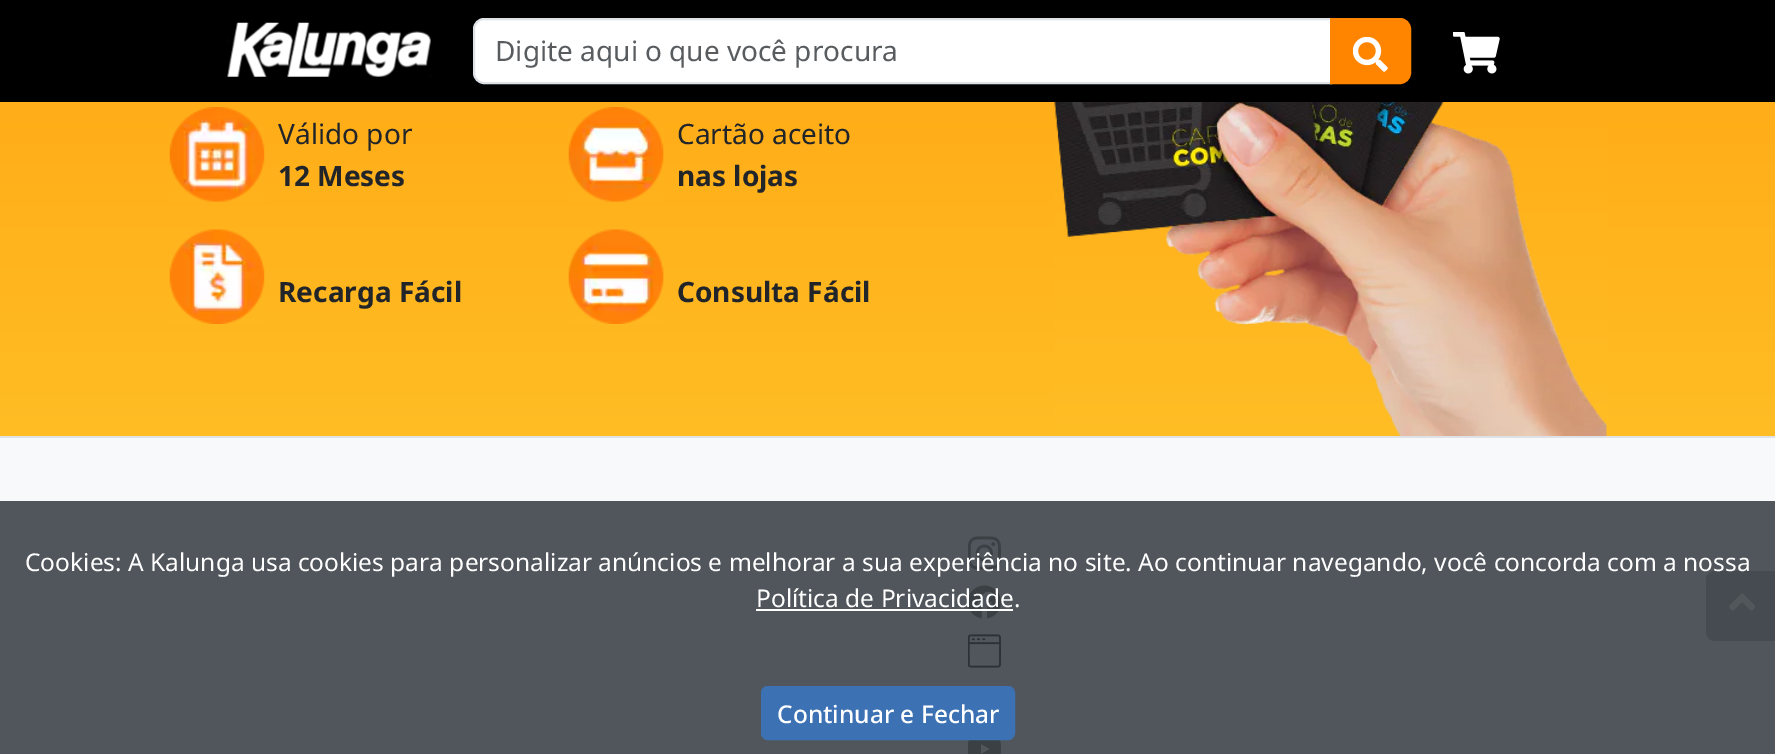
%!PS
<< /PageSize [1775 754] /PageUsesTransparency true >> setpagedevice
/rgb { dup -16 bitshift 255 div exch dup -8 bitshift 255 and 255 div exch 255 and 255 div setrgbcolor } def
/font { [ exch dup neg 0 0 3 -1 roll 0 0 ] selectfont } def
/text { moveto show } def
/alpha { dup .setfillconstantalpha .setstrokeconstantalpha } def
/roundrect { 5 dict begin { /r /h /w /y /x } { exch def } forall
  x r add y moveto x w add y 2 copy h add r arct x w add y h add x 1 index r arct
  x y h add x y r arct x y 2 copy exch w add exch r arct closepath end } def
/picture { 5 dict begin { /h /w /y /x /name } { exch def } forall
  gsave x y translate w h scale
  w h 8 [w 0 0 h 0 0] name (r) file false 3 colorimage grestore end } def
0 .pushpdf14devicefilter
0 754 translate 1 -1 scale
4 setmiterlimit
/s1 { /NotoSans-Regular 28 font 16#595C5F rgb } def
/s2 { /NotoSans-Regular 28 font 16#212529 rgb } def
/s3 { /NotoSans-Bold 28 font 16#212529 rgb } def
/s4 { /NotoSans-Regular 24.5 font 16#FFFFFF rgb } def
/s5 { /NotoSans-Medium 24.5 font 16#FFFFFF rgb } def
16#F8F9FA rgb
0 0 1775 754 rectfill
16#000000 rgb
0 0 1775 102 rectfill
(pic1.raw) 227 22 204 55 picture
16#FFFFFF rgb
484 19 moveto 1331 19 lineto 1331 83 lineto 484 83 lineto 478.5 83 474 78.5 474 73 curveto 474 29 lineto 474 23.5 478.5 19 484 19 curveto closepath gsave fill grestore
16#DEE2E6 rgb
2 setlinewidth
stroke
s1
(Digite aqui o que você procura) 495 61 text
16#FF8400 rgb
1331 19 moveto 1400 19 lineto 1405.5 19 1410 23.5 1410 29 curveto 1410 73 lineto 1410 78.5 1405.5 83 1400 83 curveto 1331 83 lineto closepath gsave fill grestore
stroke
(pic2.raw) 1353 37 35 35 picture
(pic3.raw) 1453 32 47 42 picture
gsave 0 102 moveto 1775 102 lineto 1775 436 lineto 0 436 lineto closepath clip newpath
<< /ShadingType 2 /ColorSpace /DeviceRGB /Coords [888 -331 888 436] /Extend [true true] /Function << /FunctionType 2 /Domain [0 1] /C0 [1 0.6 0.035] /C1 [1 0.741 0.141] /N 1 >> >> shfill grestore
(pic4.raw) 169 107 96 95 picture
s2
(Válido por) 278 144 text
s3
(12 Meses) 278 186 text
(pic5.raw) 568 107 96 95 picture
s2
(Cartão aceito) 677 144 text
s3
(nas lojas) 677 186 text
(pic6.raw) 169 229 96 95 picture
(Recarga Fácil) 278 302 text
(pic7.raw) 568 229 96 95 picture
(Consulta Fácil) 677 302 text
(pic8.raw) 1054 102 553 334 picture
16#DEE2E6 rgb
0 436 1775 2 rectfill
(pic9.raw) 968 536 33 34 picture
(pic10.raw) 968 585 33 34 picture
(pic11.raw) 968 634 33 34 picture
(pic12.raw) 968 740 33 14 picture
16#AEAEAF rgb
1715 571 moveto 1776 571 lineto 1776 641 lineto 1715 641 lineto 1710 641 1706 637 1706 632 curveto 1706 580 lineto 1706 575 1710 571 1715 571 curveto closepath fill
(pic13.raw) 1729 593 26 18 picture
0.85 alpha
16#343A40 rgb
0 501 1775 253 rectfill
1 alpha
s4
(Cookies: A Kalunga usa cookies para personalizar anúncios e melhorar a sua experiência no site. Ao continuar navegando, você concorda com a nossa) 25 571 text
(Política de Privacidade.) 756 607 text
756 609 257 2 rectfill
16#3C72B4 rgb
762 687 252 52 6 roundrect gsave fill grestore
stroke
s5
(Continuar e Fechar) 777 723 text
.poppdf14devicefilter showpage
